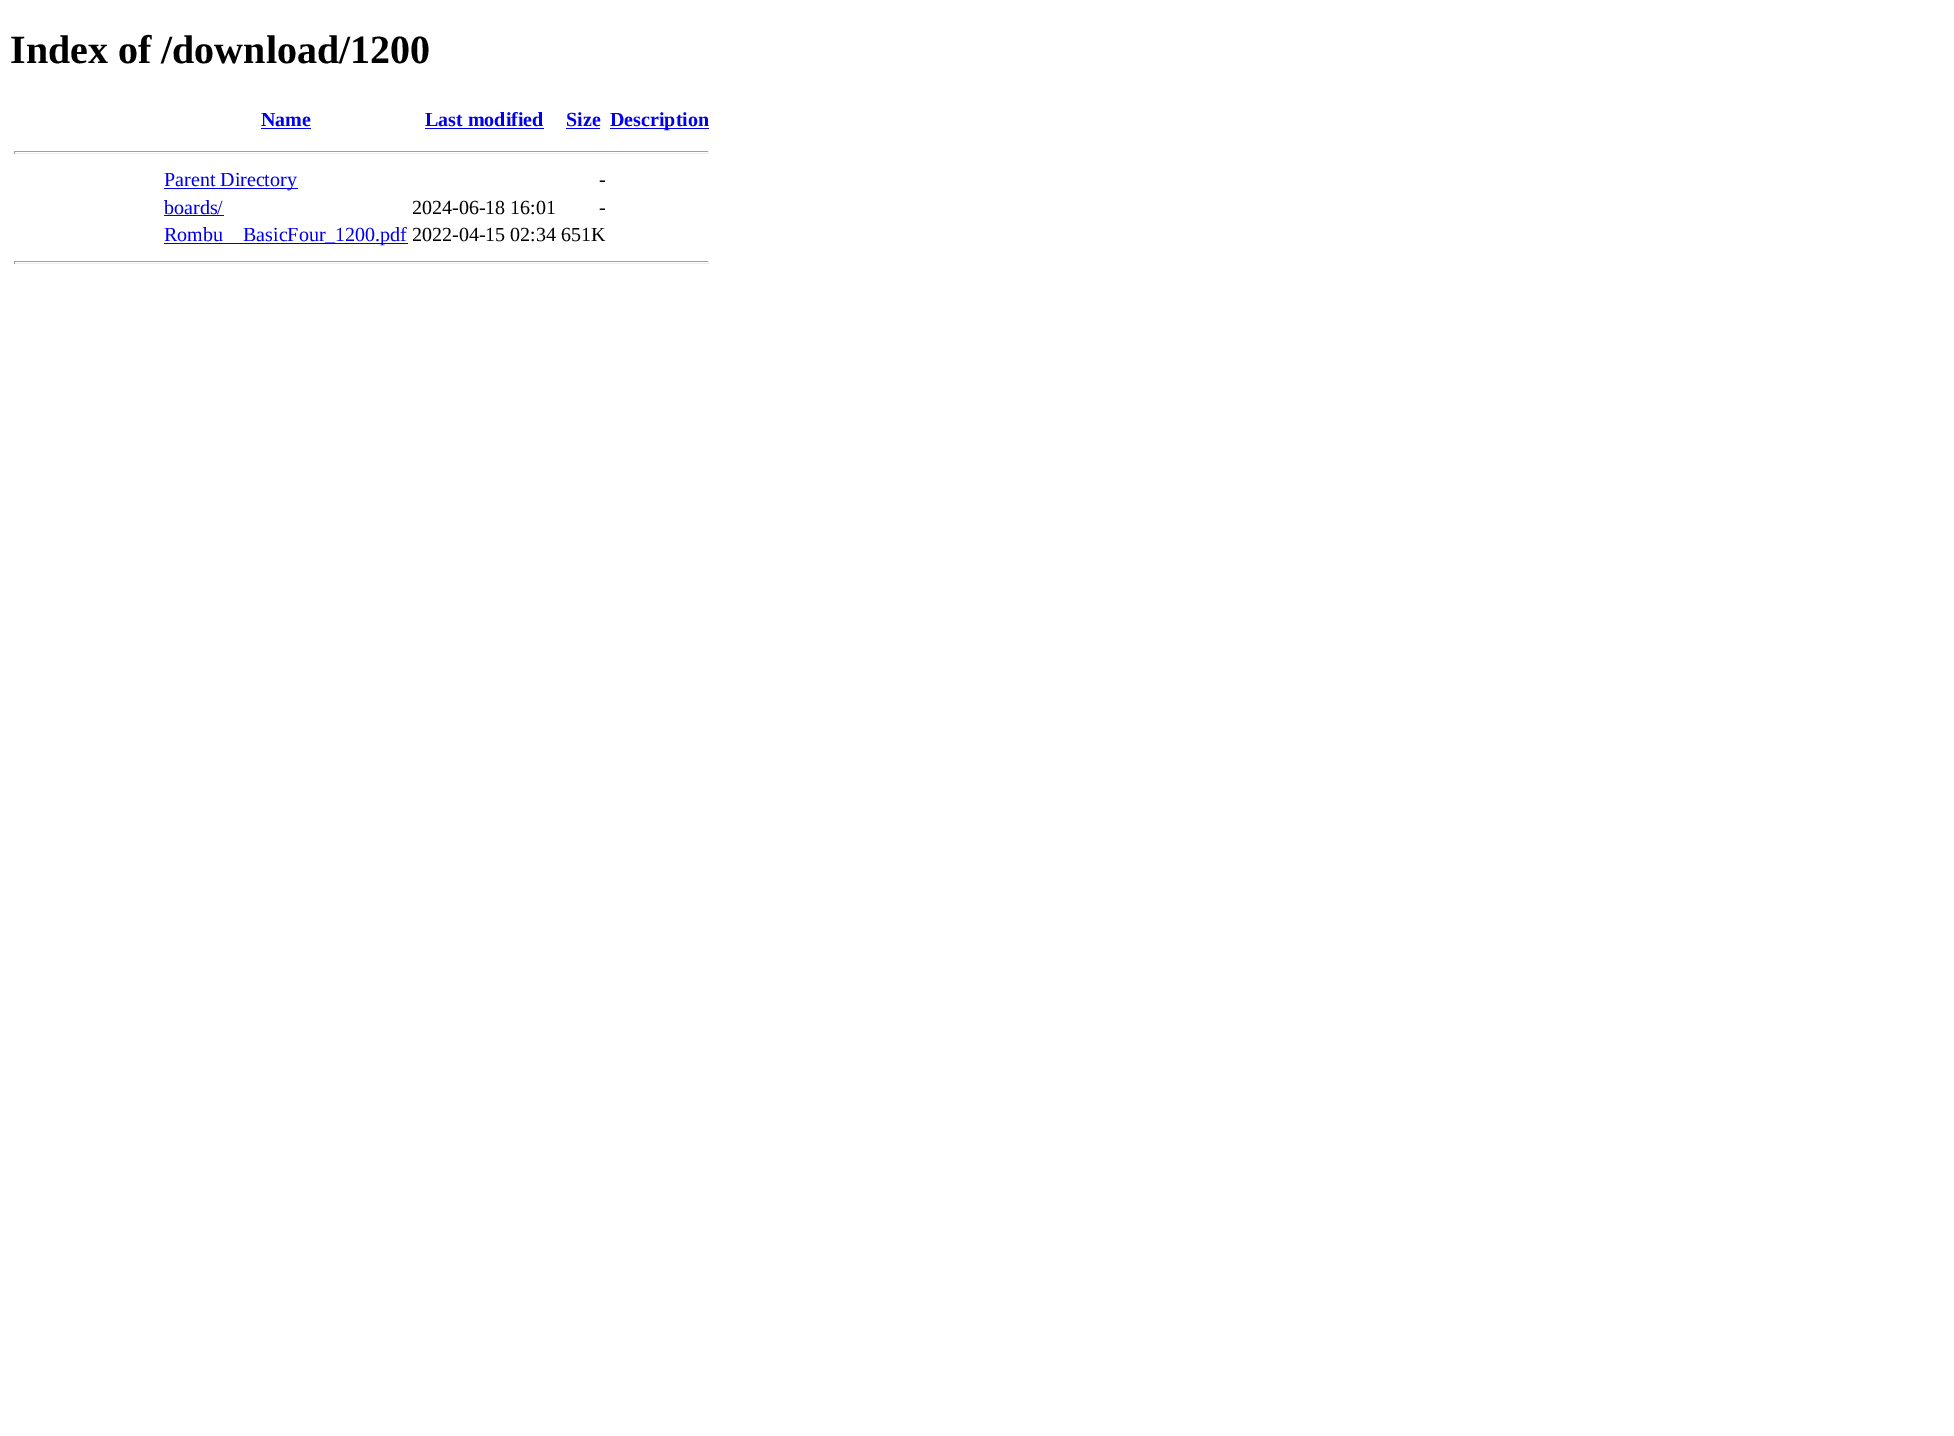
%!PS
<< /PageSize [1954 1436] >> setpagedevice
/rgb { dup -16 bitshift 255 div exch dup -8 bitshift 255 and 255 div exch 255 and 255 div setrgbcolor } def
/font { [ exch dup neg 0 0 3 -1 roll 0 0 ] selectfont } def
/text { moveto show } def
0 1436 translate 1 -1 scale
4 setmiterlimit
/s1 { /LiberationSerif-Bold 40 font 16#000000 rgb } def
/s2 { /LiberationSerif-Bold 20 font 16#0000EE rgb } def
/s3 { /LiberationSerif-Regular 20 font 16#0000EE rgb } def
/s4 { /LiberationSerif-Regular 20 font 16#000000 rgb } def
16#FFFFFF rgb
0 0 1954 1436 rectfill
s1
(Index of /download/1200) 10 63 text
s2
(Name) 261 126 text
261 128 50 1 rectfill
(Last modified) 425 126 text
425 128 119 1 rectfill
(Size) 566 126 text
566 128 34 1 rectfill
610 128 99 1 rectfill
(Description) 610 126 text
16#9F9F9F rgb
14 151 695 1 rectfill
16#EEEEEE rgb
708 151 1 3 rectfill
14 153 695 1 rectfill
16#9F9F9F rgb
14 151 1 3 rectfill
16#0000EE rgb
164 188 134 1 rectfill
s3
(Parent Directory) 164 186 text
s4
(-) 599 186 text
s3
(boards/) 164 214 text
164 215 60 1 rectfill
s4
(2024-06-18 16:01) 412 214 text
(-) 599 214 text
s3
(Rombu) 164 241 text
164 243 244 1 rectfill
(BasicFour_1200.pdf) 243 241 text
s4
(2022-04-15 02:34 651K) 412 241 text
16#9F9F9F rgb
14 261 695 1 rectfill
16#EEEEEE rgb
708 261 1 3 rectfill
14 263 695 1 rectfill
16#9F9F9F rgb
14 261 1 3 rectfill
showpage
